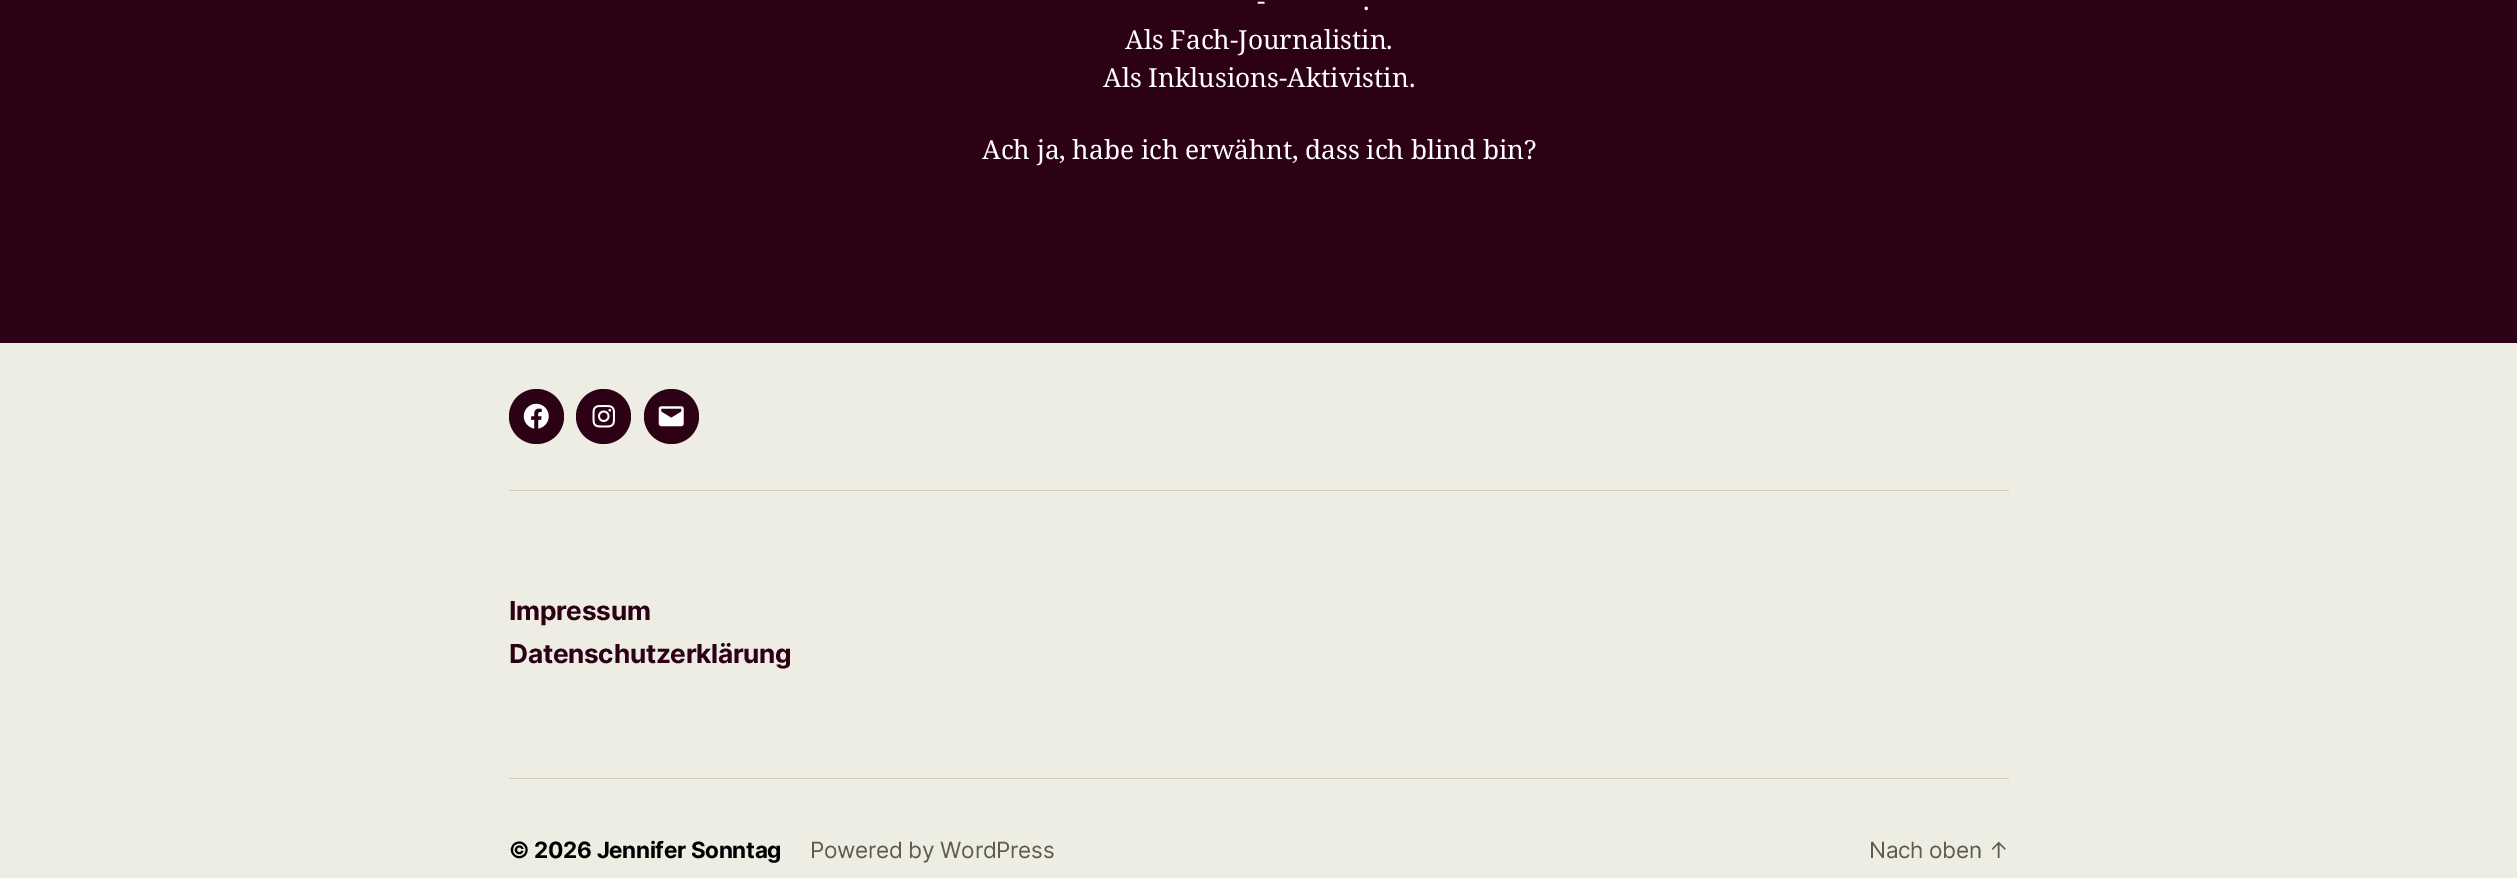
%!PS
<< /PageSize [2517 878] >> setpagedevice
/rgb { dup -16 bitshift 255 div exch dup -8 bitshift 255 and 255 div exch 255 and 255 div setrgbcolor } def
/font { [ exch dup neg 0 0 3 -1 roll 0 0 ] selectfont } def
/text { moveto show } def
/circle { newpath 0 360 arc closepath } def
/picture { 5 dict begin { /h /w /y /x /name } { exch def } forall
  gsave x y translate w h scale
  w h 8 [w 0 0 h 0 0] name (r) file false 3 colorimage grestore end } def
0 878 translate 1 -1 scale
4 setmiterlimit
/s1 { /NotoSerif-Regular 26.25 font 16#FFFFFF rgb } def
16#2D0115 rgb
0 0 2517 878 rectfill
s1
(-) 1257 10 text
(.) 1363 10 text
(Als Fach-Journalistin.) 1125 49 text
(Als Inklusions-Aktivistin.) 1103 87 text
982 159 moveto -0.25 0 32 (Ach ja, habe ich erwähnt, dass ich blind bin?) widthshow
16#EDEDE3 rgb
0 343 2517 535 rectfill
16#CDCDB1 rgb
509 490 1500 1 rectfill
16#2D0115 rgb
536.5 416.5 27.5 circle fill
(pic1.raw) 523 403 26 26 picture
603.5 416.5 27.5 circle fill
(pic2.raw) 592 405 23 23 picture
671.5 416.5 27.5 circle fill
(pic3.raw) 658 406 26 21 picture
16#CDCDB1 rgb
509 778 1500 1 rectfill
/Inter-Bold 26.25 font
16#2D0115 rgb
509 620 moveto -0.3 0 (Impressum) ashow
509 663 moveto -0.3 0 (Datenschutzerklärung) ashow
/Inter-Bold 22.5 font
16#000000 rgb
509 858 moveto -0.3 0 (© 2026 Jennifer Sonntag) ashow
/Inter-Regular 22.5 font
16#5D5D4A rgb
810 858 moveto -0.3 0 (Powered by WordPress) ashow
1869 858 moveto -0.3 0 (Nach oben ↑) ashow
showpage
